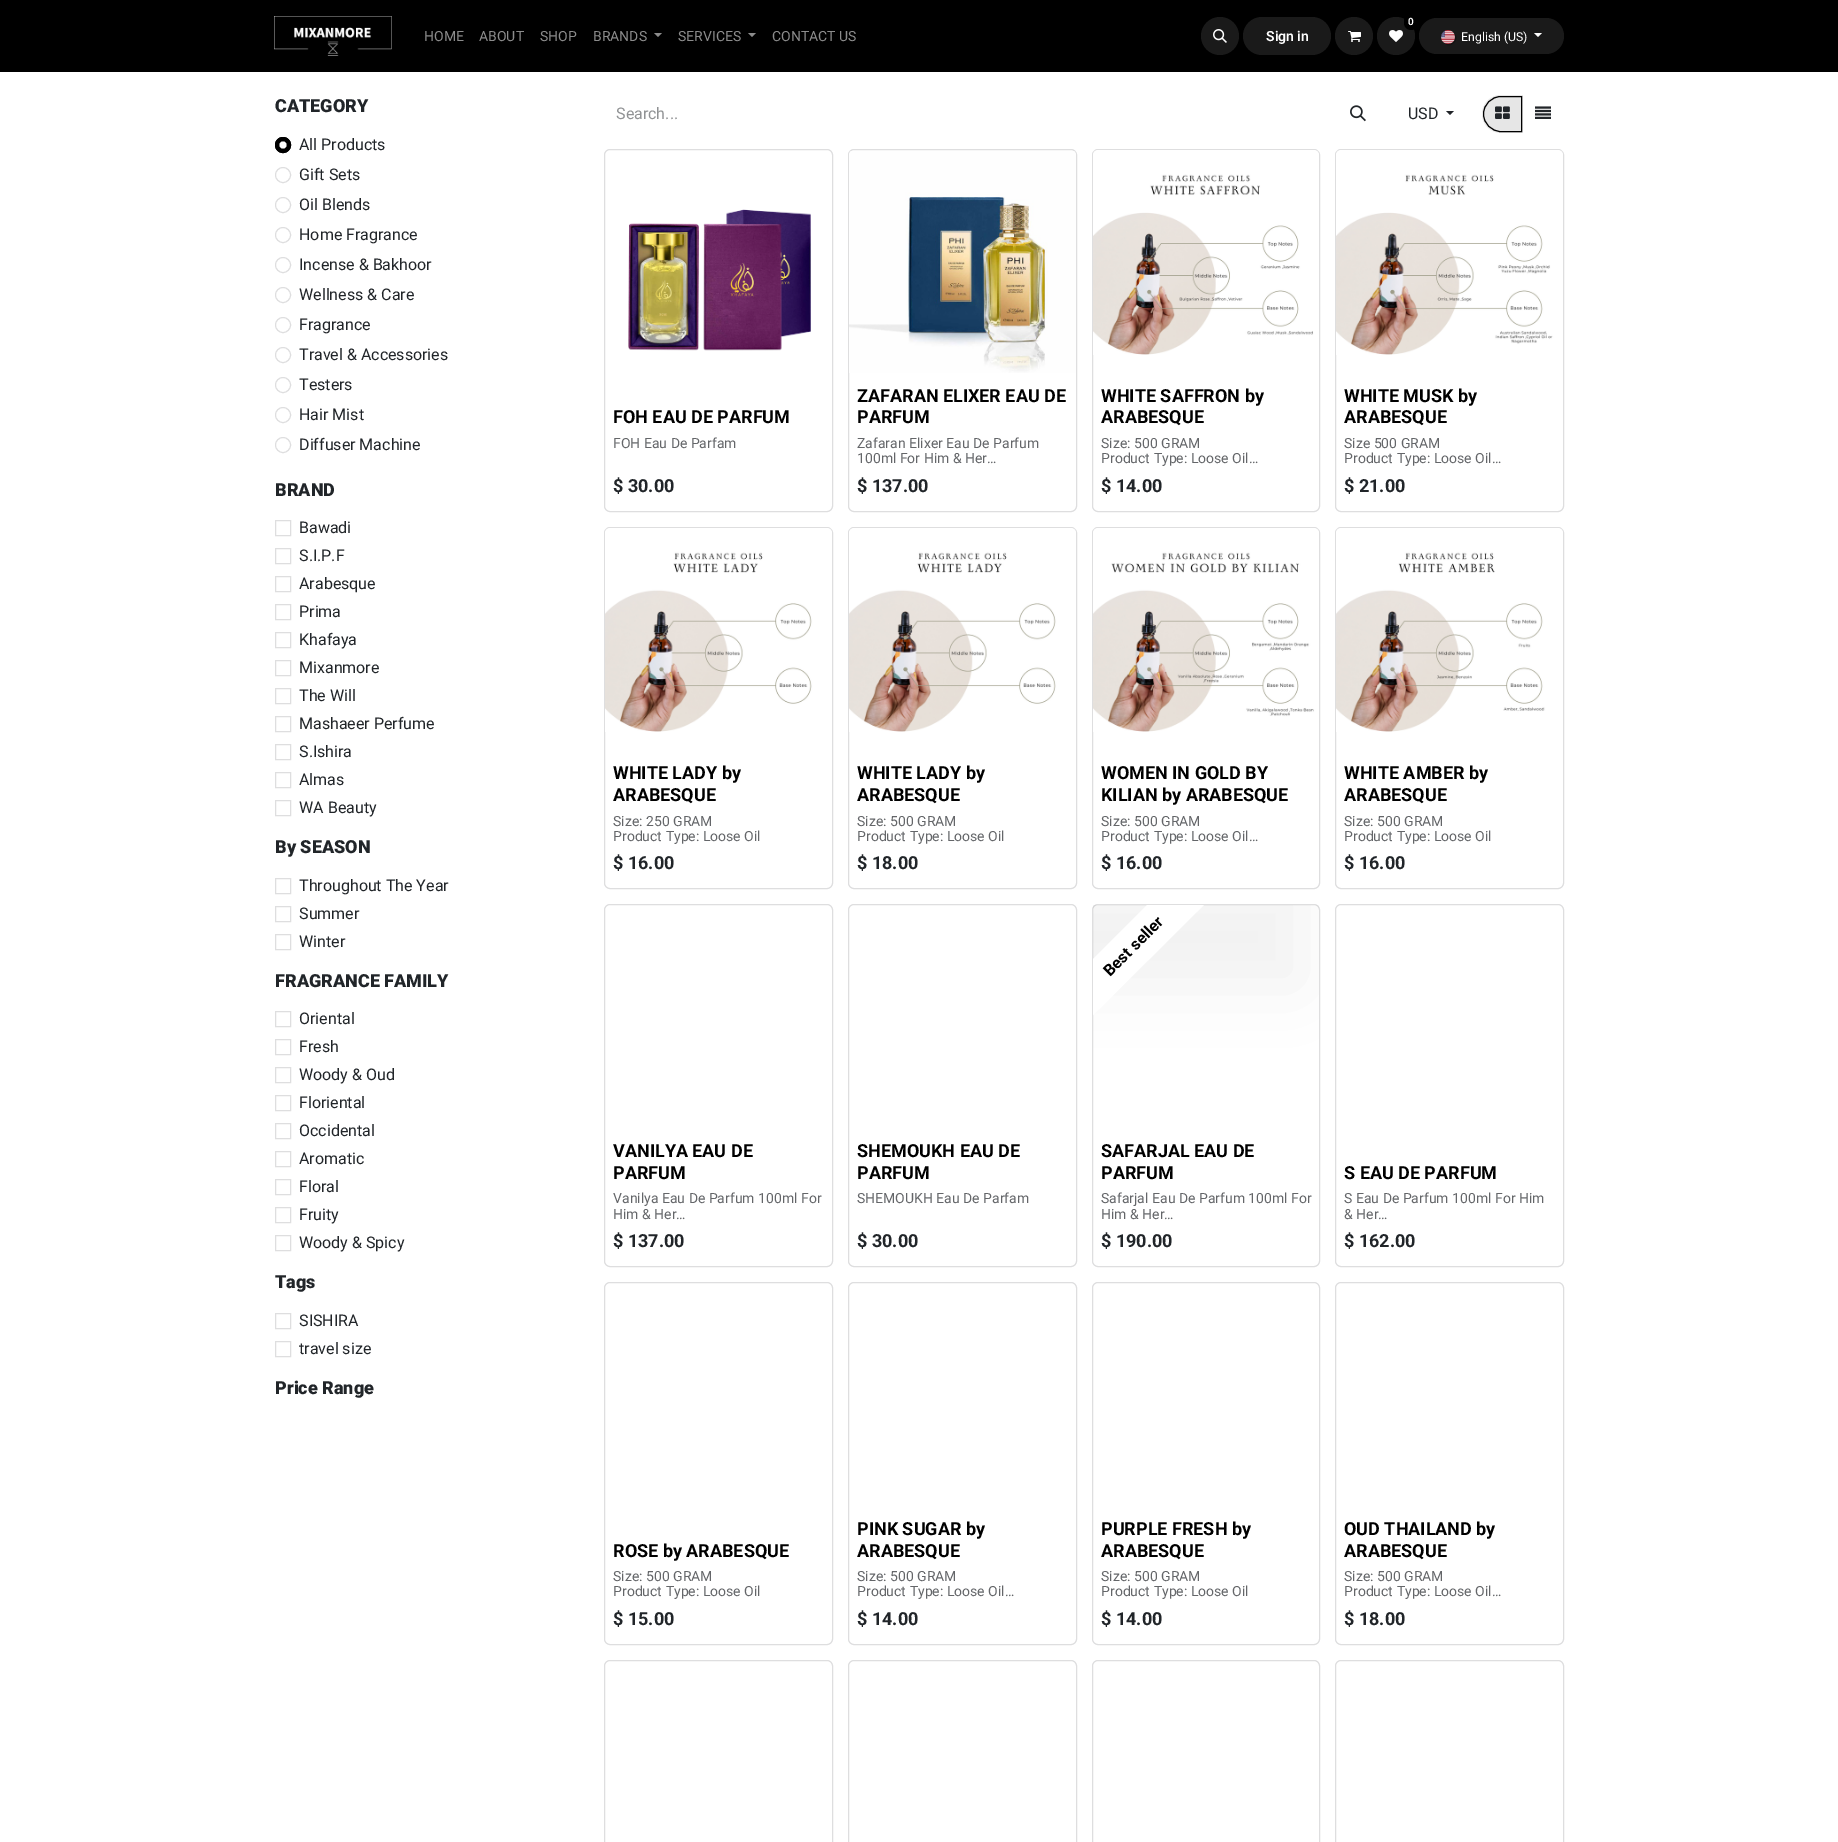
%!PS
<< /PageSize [1838 1842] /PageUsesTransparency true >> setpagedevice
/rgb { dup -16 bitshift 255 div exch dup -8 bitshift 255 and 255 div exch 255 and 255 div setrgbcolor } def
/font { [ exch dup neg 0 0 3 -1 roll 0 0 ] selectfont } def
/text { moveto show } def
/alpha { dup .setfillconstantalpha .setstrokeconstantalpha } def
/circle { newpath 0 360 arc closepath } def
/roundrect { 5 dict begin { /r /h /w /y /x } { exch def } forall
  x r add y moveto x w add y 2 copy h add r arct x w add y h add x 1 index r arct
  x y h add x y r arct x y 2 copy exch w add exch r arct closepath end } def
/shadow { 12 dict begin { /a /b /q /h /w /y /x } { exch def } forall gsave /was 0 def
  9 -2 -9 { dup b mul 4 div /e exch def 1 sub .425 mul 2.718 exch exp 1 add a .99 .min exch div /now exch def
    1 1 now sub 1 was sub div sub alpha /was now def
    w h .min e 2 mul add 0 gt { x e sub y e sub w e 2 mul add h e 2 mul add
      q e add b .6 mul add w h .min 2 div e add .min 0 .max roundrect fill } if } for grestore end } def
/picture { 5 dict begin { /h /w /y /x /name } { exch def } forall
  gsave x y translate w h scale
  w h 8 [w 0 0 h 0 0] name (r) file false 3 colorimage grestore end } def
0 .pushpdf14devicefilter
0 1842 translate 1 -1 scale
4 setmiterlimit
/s1 { /Roboto-Regular 14 font 16#8C8C8C rgb } def
/s2 { /Roboto-SemiBold 10 font 16#FFFFFF rgb } def
/s3 { /Roboto-SemiBold 14 font 16#FFFFFF rgb } def
/s4 { /Roboto-Regular 12.25 font 16#FFFFFF rgb } def
/s5 { /Roboto-Black 18 font 16#212529 rgb } def
/s6 { /Roboto-Regular 16 font 16#212529 rgb } def
/s7 { /Roboto-Regular 16 font 16#909294 rgb } def
/s8 { /Roboto-Bold 18 font 16#000000 rgb } def
/s9 { /Roboto-Regular 14 font 16#646669 rgb } def
/s10 { /Roboto-Bold 18 font 16#212529 rgb } def
16#FFFFFF rgb
0 0 1838 1842 rectfill
16#000000 rgb
0 0 1838 72 rectfill
(pic1.raw) 274 16 118 40 picture
s1
(HOME) 424 41 text
(ABOUT) 479 41 text
(SHOP) 540 41 text
(BRANDS) 593 41 text
654 33 moveto 662 33 lineto 658 37 lineto closepath fill
(SERVICES) 678 41 text
748 33 moveto 756 33 lineto 752 37 lineto closepath fill
(CONTACT US) 772 41 text
16#1A1A1A rgb
1220 36 19 circle fill
(pic2.raw) 1213 29 14 14 picture
1354 36 19 circle fill
(pic3.raw) 1348 31 13 11 picture
1396 36 19 circle fill
16#000000 rgb
1404 14 14 16 7 roundrect fill
s2
(0) 1408 25 text
(pic4.raw) 1389 30 14 12 picture
16#1A1A1A rgb
1243 17 88 38 19 roundrect fill
s3
(Sign in) 1266 41 text
16#1A1A1A rgb
1419 18 145 36 18 roundrect fill
16#000000 rgb
1442 31 14 14 7 0.5 0.43 shadow
(pic5.raw) 1441 30 14 14 picture
s4
(English \(US\)) 1461 41 text
1534 33 moveto 1542 33 lineto 1538 37 lineto closepath fill
s5
(CATEGORY) 275 112 text
16#000000 rgb
283 145 8 circle fill
16#FFFFFF rgb
283 145 3.5 circle fill
16#000000 rgb
283 145 7.5 circle stroke
s6
(All Products) 299 150 text
16#DEDEDF rgb
283 175 7.5 circle stroke
s6
(Gift Sets) 299 180 text
16#DEDEDF rgb
283 205 7.5 circle stroke
s6
(Oil Blends) 299 210 text
16#DEDEDF rgb
283 235 7.5 circle stroke
s6
(Home Fragrance) 299 240 text
16#DEDEDF rgb
283 265 7.5 circle stroke
s6
(Incense & Bakhoor) 299 270 text
16#DEDEDF rgb
283 295 7.5 circle stroke
s6
(Wellness & Care) 299 300 text
16#DEDEDF rgb
283 325 7.5 circle stroke
s6
(Fragrance) 299 330 text
16#DEDEDF rgb
283 355 7.5 circle stroke
s6
(Travel & Accessories) 299 360 text
16#DEDEDF rgb
283 385 7.5 circle stroke
s6
(Testers) 299 390 text
16#DEDEDF rgb
283 415 7.5 circle stroke
s6
(Hair Mist) 299 420 text
16#DEDEDF rgb
283 445 7.5 circle stroke
s6
(Diffuser Machine) 299 450 text
s5
(BRAND) 275 496 text
16#DEDEDF rgb
275.5 520.5 15 15 rectstroke
s6
(Bawadi) 299 533 text
16#DEDEDF rgb
275.5 548.5 15 15 rectstroke
s6
(S.I.P.F) 299 561 text
16#DEDEDF rgb
275.5 576.5 15 15 rectstroke
s6
(Arabesque) 299 589 text
16#DEDEDF rgb
275.5 604.5 15 15 rectstroke
s6
(Prima) 299 617 text
16#DEDEDF rgb
275.5 632.5 15 15 rectstroke
s6
(Khafaya) 299 645 text
16#DEDEDF rgb
275.5 660.5 15 15 rectstroke
s6
(Mixanmore) 299 673 text
16#DEDEDF rgb
275.5 688.5 15 15 rectstroke
s6
(The Will) 299 701 text
16#DEDEDF rgb
275.5 716.5 15 15 rectstroke
s6
(Mashaeer Perfume) 299 729 text
16#DEDEDF rgb
275.5 744.5 15 15 rectstroke
s6
(S.Ishira) 299 757 text
16#DEDEDF rgb
275.5 772.5 15 15 rectstroke
s6
(Almas) 299 785 text
16#DEDEDF rgb
275.5 800.5 15 15 rectstroke
s6
(WA Beauty) 299 813 text
s5
(By SEASON) 275 853 text
16#DEDEDF rgb
275.5 878.5 15 15 rectstroke
s6
(Throughout The Year) 299 891 text
16#DEDEDF rgb
275.5 906.5 15 15 rectstroke
s6
(Summer) 299 919 text
16#DEDEDF rgb
275.5 934.5 15 15 rectstroke
s6
(Winter) 299 947 text
s5
(FRAGRANCE FAMILY) 275 987 text
16#DEDEDF rgb
275.5 1011.5 15 15 rectstroke
s6
(Oriental) 299 1024 text
16#DEDEDF rgb
275.5 1039.5 15 15 rectstroke
s6
(Fresh) 299 1052 text
16#DEDEDF rgb
275.5 1067.5 15 15 rectstroke
s6
(Woody & Oud) 299 1080 text
16#DEDEDF rgb
275.5 1095.5 15 15 rectstroke
s6
(Floriental) 299 1108 text
16#DEDEDF rgb
275.5 1123.5 15 15 rectstroke
s6
(Occidental) 299 1136 text
16#DEDEDF rgb
275.5 1151.5 15 15 rectstroke
s6
(Aromatic) 299 1164 text
16#DEDEDF rgb
275.5 1179.5 15 15 rectstroke
s6
(Floral) 299 1192 text
16#DEDEDF rgb
275.5 1207.5 15 15 rectstroke
s6
(Fruity) 299 1220 text
16#DEDEDF rgb
275.5 1235.5 15 15 rectstroke
s6
(Woody & Spicy) 299 1248 text
s5
(Tags) 275 1288 text
16#DEDEDF rgb
275.5 1313.5 15 15 rectstroke
s6
(SISHIRA) 299 1326 text
16#DEDEDF rgb
275.5 1341.5 15 15 rectstroke
s6
(travel size) 299 1354 text
s5
(Price Range) 275 1394 text
s7
(Search...) 616 119 text
(pic6.raw) 1350 105 16 17 picture
s6
(USD) 1408 119 text
1446 111 moveto 1454 111 lineto 1450 115 lineto closepath fill
16#E6E6E6 rgb
1501 95 moveto 1523 95 lineto 1523 133 lineto 1501 133 lineto 1490.5 133 1482 124.5 1482 114 curveto 1482 103.5 1490.5 95 1501 95 curveto closepath fill
16#000000 rgb
1501 96.5 moveto 1521.5 96.5 lineto 1521.5 131.5 lineto 1501 131.5 lineto 1491.5 131.5 1483.5 123.5 1483.5 114 curveto 1483.5 104.5 1491.5 96.5 1501 96.5 curveto closepath stroke
(pic7.raw) 1495 106 15 13 picture
(pic8.raw) 1535 106 16 13 picture
16#DEDEDF rgb
604.5 149.5 228 362 5.5 roundrect stroke
(pic9.raw) 628 209 183 142 picture
s8
(FOH EAU DE PARFUM) 613 423 text
s9
(FOH Eau De Parfam) 613 448 text
s10
($ 30.00) 613 492 text
16#DEDEDF rgb
848.5 149.5 228 362 5.5 roundrect stroke
(pic10.raw) 849 151 227 222 picture
s8
(ZAFARAN ELIXER EAU DE) 857 402 text
(PARFUM) 857 423 text
s9
(Zafaran Elixer Eau De Parfum) 857 448 text
(100ml For Him & Her…) 857 463 text
s10
($ 137.00) 857 492 text
16#DEDEDF rgb
1092.5 149.5 227 362 5.5 roundrect stroke
(pic11.raw) 1093 150 226 205 picture
s8
(WHITE SAFFRON by) 1101 402 text
(ARABESQUE) 1101 423 text
s9
(Size: 500 GRAM) 1101 448 text
(Product Type: Loose Oil…) 1101 463 text
s10
($ 14.00) 1101 492 text
16#DEDEDF rgb
1335.5 149.5 228 362 5.5 roundrect stroke
(pic12.raw) 1336 150 227 205 picture
s8
(WHITE MUSK by) 1344 402 text
(ARABESQUE) 1344 423 text
s9
(Size 500 GRAM) 1344 448 text
(Product Type: Loose Oil…) 1344 463 text
s10
($ 21.00) 1344 492 text
16#DEDEDF rgb
604.5 527.5 228 361 5.5 roundrect stroke
(pic13.raw) 605 528 227 204 picture
s8
(WHITE LADY by) 613 779 text
(ARABESQUE) 613 801 text
s9
(Size: 250 GRAM) 613 826 text
(Product Type: Loose Oil) 613 841 text
s10
($ 16.00) 613 869 text
16#DEDEDF rgb
848.5 527.5 228 361 5.5 roundrect stroke
(pic14.raw) 849 528 227 204 picture
s8
(WHITE LADY by) 857 779 text
(ARABESQUE) 857 801 text
s9
(Size: 500 GRAM) 857 826 text
(Product Type: Loose Oil) 857 841 text
s10
($ 18.00) 857 869 text
16#DEDEDF rgb
1092.5 527.5 227 361 5.5 roundrect stroke
(pic15.raw) 1093 528 226 204 picture
s8
(WOMEN IN GOLD BY) 1101 779 text
(KILIAN by ARABESQUE) 1101 801 text
s9
(Size: 500 GRAM) 1101 826 text
(Product Type: Loose Oil…) 1101 841 text
s10
($ 16.00) 1101 869 text
16#DEDEDF rgb
1335.5 527.5 228 361 5.5 roundrect stroke
(pic16.raw) 1336 528 227 204 picture
s8
(WHITE AMBER by) 1344 779 text
(ARABESQUE) 1344 801 text
s9
(Size: 500 GRAM) 1344 826 text
(Product Type: Loose Oil) 1344 841 text
s10
($ 16.00) 1344 869 text
16#DEDEDF rgb
604.5 904.5 228 362 5.5 roundrect stroke
s8
(VANILYA EAU DE) 613 1157 text
(PARFUM) 613 1179 text
s9
(Vanilya Eau De Parfum 100ml For) 613 1203 text
(Him & Her…) 613 1219 text
s10
($ 137.00) 613 1247 text
16#DEDEDF rgb
848.5 904.5 228 362 5.5 roundrect stroke
s8
(SHEMOUKH EAU DE) 857 1157 text
(PARFUM) 857 1179 text
s9
(SHEMOUKH Eau De Parfam) 857 1203 text
s10
($ 30.00) 857 1247 text
16#DEDEDF rgb
1092.5 904.5 227 362 5.5 roundrect stroke
gsave
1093 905 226 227 rectclip
16#000000 rgb
966 887 336 100 0 35 0.05 shadow
grestore
gsave
1093 905 226 227 rectclip
16#FFFFFF rgb
1022 1030 moveto 1217 835 lineto 1246 863 lineto 1050 1058 lineto closepath fill
grestore
/Roboto-Bold 16 font
16#000000 rgb
gsave 1110 977 translate -45 rotate 0 0 moveto (Best seller) show grestore
s8
(SAFARJAL EAU DE) 1101 1157 text
(PARFUM) 1101 1179 text
s9
(Safarjal Eau De Parfum 100ml For) 1101 1203 text
(Him & Her…) 1101 1219 text
s10
($ 190.00) 1101 1247 text
16#DEDEDF rgb
1335.5 904.5 228 362 5.5 roundrect stroke
s8
(S EAU DE PARFUM) 1344 1179 text
s9
(S Eau De Parfum 100ml For Him) 1344 1203 text
(& Her…) 1344 1219 text
s10
($ 162.00) 1344 1247 text
16#DEDEDF rgb
604.5 1282.5 228 362 5.5 roundrect stroke
s8
(ROSE by ARABESQUE) 613 1557 text
s9
(Size: 500 GRAM) 613 1581 text
(Product Type: Loose Oil) 613 1596 text
s10
($ 15.00) 613 1625 text
16#DEDEDF rgb
848.5 1282.5 228 362 5.5 roundrect stroke
s8
(PINK SUGAR by) 857 1535 text
(ARABESQUE) 857 1557 text
s9
(Size: 500 GRAM) 857 1581 text
(Product Type: Loose Oil…) 857 1596 text
s10
($ 14.00) 857 1625 text
16#DEDEDF rgb
1092.5 1282.5 227 362 5.5 roundrect stroke
s8
(PURPLE FRESH by) 1101 1535 text
(ARABESQUE) 1101 1557 text
s9
(Size: 500 GRAM) 1101 1581 text
(Product Type: Loose Oil) 1101 1596 text
s10
($ 14.00) 1101 1625 text
16#DEDEDF rgb
1335.5 1282.5 228 362 5.5 roundrect stroke
s8
(OUD THAILAND by) 1344 1535 text
(ARABESQUE) 1344 1557 text
s9
(Size: 500 GRAM) 1344 1581 text
(Product Type: Loose Oil…) 1344 1596 text
s10
($ 18.00) 1344 1625 text
16#DEDEDF rgb
604.5 1660.5 228 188 5.5 roundrect stroke
848.5 1660.5 228 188 5.5 roundrect stroke
1092.5 1660.5 227 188 5.5 roundrect stroke
1335.5 1660.5 228 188 5.5 roundrect stroke
.poppdf14devicefilter showpage
